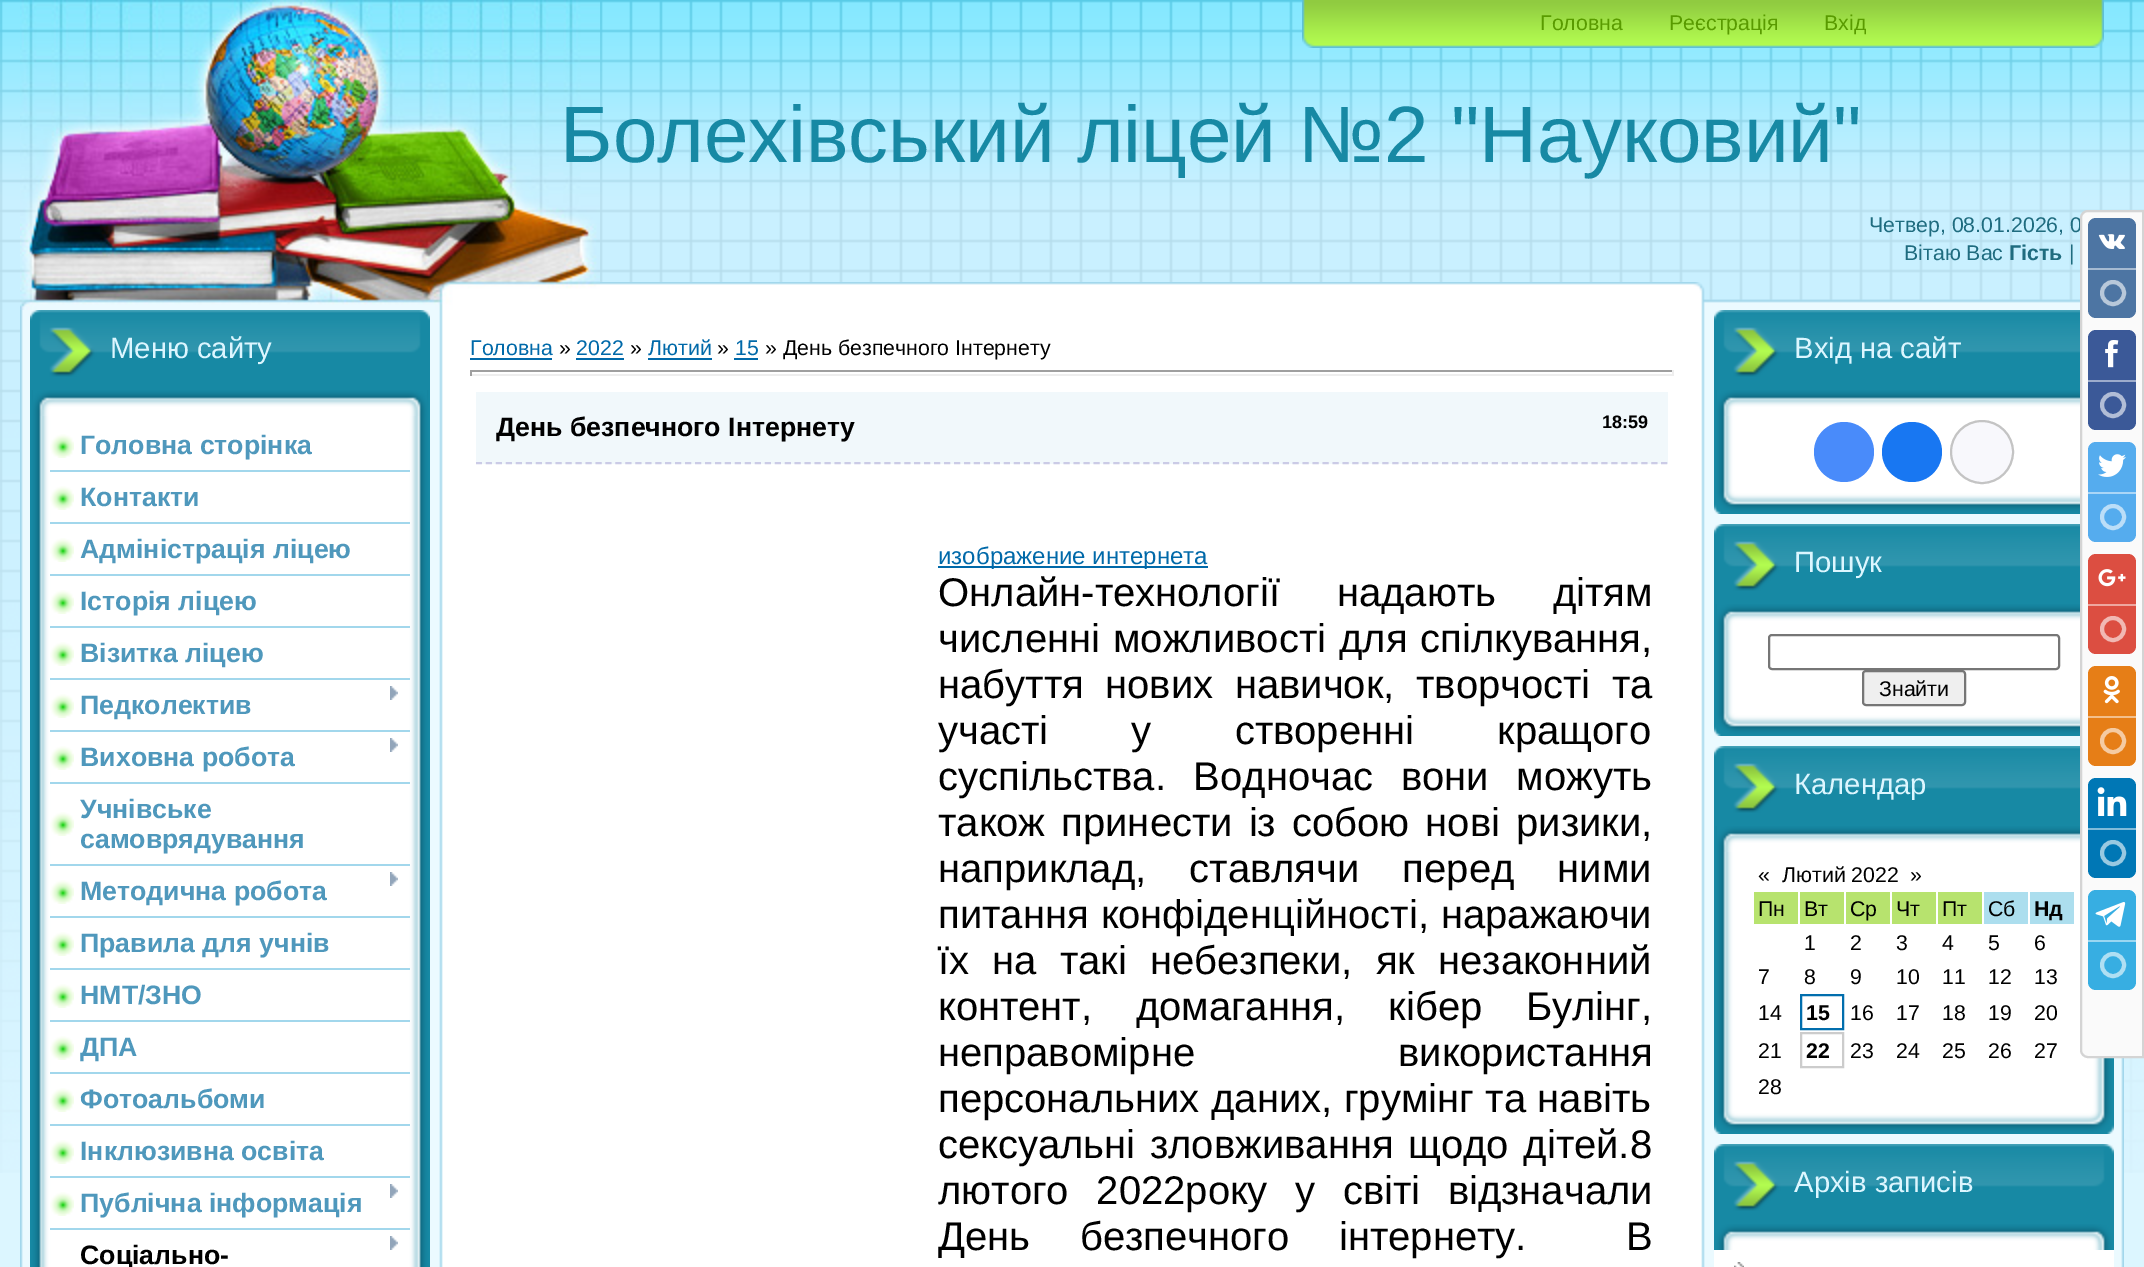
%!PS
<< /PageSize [2144 1267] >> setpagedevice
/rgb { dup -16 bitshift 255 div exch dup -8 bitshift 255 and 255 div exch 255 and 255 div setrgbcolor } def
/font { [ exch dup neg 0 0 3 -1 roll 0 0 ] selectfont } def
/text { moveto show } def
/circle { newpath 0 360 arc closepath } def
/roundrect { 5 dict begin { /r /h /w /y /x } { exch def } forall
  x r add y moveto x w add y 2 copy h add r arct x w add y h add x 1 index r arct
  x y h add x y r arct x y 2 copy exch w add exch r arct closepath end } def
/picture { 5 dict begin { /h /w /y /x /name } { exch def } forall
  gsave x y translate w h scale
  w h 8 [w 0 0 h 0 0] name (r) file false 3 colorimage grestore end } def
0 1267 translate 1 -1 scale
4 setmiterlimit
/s1 { /LiberationSans-Regular 21.3 font 16#599B00 rgb } def
/s2 { /LiberationSans-Regular 80 font 16#1789A4 rgb } def
/s3 { /LiberationSans-Regular 21.3 font 16#1F6C7F rgb } def
/s4 { /LiberationSans-Bold 21.3 font 16#1F6C7F rgb } def
/s5 { /LiberationSans-Regular 29.25 font 16#DCF6FF rgb } def
/s6 { /LiberationSans-Bold 26.7 font 16#4F98BC rgb } def
/s7 { /LiberationSans-Bold 26.7 font 16#000000 rgb } def
/s8 { /LiberationSans-Regular 21.3 font 16#0069A9 rgb } def
/s9 { /LiberationSans-Regular 21.3 font 16#000000 rgb } def
/s10 { /LiberationSans-Bold 18 font 16#000000 rgb } def
/s11 { /LiberationSans-Regular 24 font 16#0069A9 rgb } def
/s12 { /LiberationSans-Bold 21.3 font 16#000000 rgb } def
16#DCF6FF rgb
0 0 2144 1267 rectfill
(pic1.raw) 0 0 2144 1173 picture
(pic2.raw) 600 282 1480 28 picture
(pic3.raw) 20 0 580 310 picture
(pic4.raw) 1302 0 802 48 picture
s1
(Головна) 1540 30 text
(Реєстрація) 1669 30 text
(Вхід) 1824 30 text
s2
(Болехівський ліцей №2 "Науковий") 560 162 text
s3
(Четвер, 08.01.2026, 0) 1869 232 text
(Вітаю Вас) 1904 260 text
s4
(Гість) 2009 260 text
s3
(|) 2069 260 text
(pic5.raw) 20 310 430 957 picture
(pic6.raw) 30 390 400 877 picture
16#1789A4 rgb
30 377 400 13 rectfill
(pic7.raw) 30 310 400 67 picture
s5
(Меню сайту) 110 358 text
(pic8.raw) 33 390 394 26 picture
(pic9.raw) 50 434 24 24 picture
16#A2D7EC rgb
50 470 360 2 rectfill
s6
(Головна сторінка) 80 454 text
(pic9.raw) 50 486 24 24 picture
16#A2D7EC rgb
50 522 360 2 rectfill
s6
(Контакти) 80 506 text
(pic9.raw) 50 538 24 24 picture
16#A2D7EC rgb
50 574 360 2 rectfill
s6
(Адміністрація ліцею) 80 558 text
(pic9.raw) 50 590 24 24 picture
16#A2D7EC rgb
50 626 360 2 rectfill
s6
(Історія ліцею) 80 610 text
(pic9.raw) 50 642 24 24 picture
16#A2D7EC rgb
50 678 360 2 rectfill
s6
(Візитка ліцею) 80 662 text
(pic9.raw) 50 694 24 24 picture
16#A2D7EC rgb
50 730 360 2 rectfill
(pic10.raw) 390 686 8 14 picture
s6
(Педколектив) 80 714 text
(pic9.raw) 50 746 24 24 picture
16#A2D7EC rgb
50 782 360 2 rectfill
s6
(Виховна робота) 80 766 text
(pic10.raw) 390 738 8 14 picture
(pic9.raw) 50 812 24 24 picture
16#A2D7EC rgb
50 864 360 2 rectfill
s6
(Учнівське) 80 818 text
(самоврядування) 80 848 text
(pic9.raw) 50 880 24 24 picture
16#A2D7EC rgb
50 916 360 2 rectfill
s6
(Методична робота) 80 900 text
(pic10.raw) 390 872 8 14 picture
(pic9.raw) 50 932 24 24 picture
16#A2D7EC rgb
50 968 360 2 rectfill
s6
(Правила для учнів) 80 952 text
(pic9.raw) 50 984 24 24 picture
16#A2D7EC rgb
50 1020 360 2 rectfill
s6
(НМТ/ЗНО) 80 1004 text
(pic9.raw) 50 1036 24 24 picture
16#A2D7EC rgb
50 1072 360 2 rectfill
s6
(ДПА) 80 1056 text
(pic9.raw) 50 1088 24 24 picture
16#A2D7EC rgb
50 1124 360 2 rectfill
s6
(Фотоальбоми) 80 1108 text
(pic9.raw) 50 1140 24 24 picture
16#A2D7EC rgb
50 1176 360 2 rectfill
s6
(Інклюзивна освіта) 80 1160 text
(pic9.raw) 50 1192 24 24 picture
16#A2D7EC rgb
50 1228 360 2 rectfill
s6
(Публічна інформація) 80 1212 text
(pic10.raw) 390 1184 8 14 picture
s7
(Соціально-) 80 1264 text
(pic10.raw) 390 1236 8 14 picture
16#FFFFFF rgb
450 310 1244 957 rectfill
s8
(Головна) 470 355 text
470 358 82 2 rectfill
s9
(») 559 355 text
s8
(2022) 576 355 text
576 358 48 2 rectfill
s9
(») 630 355 text
s8
(Лютий) 648 355 text
648 358 64 2 rectfill
s9
(») 717 355 text
s8
(15) 735 355 text
734 358 24 2 rectfill
s9
(» День безпечного Інтернету) 765 355 text
16#9F9F9F rgb
470 370 1204 2 rectfill
16#EEEEEE rgb
1672 370 2 6 rectfill
470 374 1204 2 rectfill
16#9F9F9F rgb
470 370 2 6 rectfill
16#F1F8FB rgb
476 392 1192 72 rectfill
16#CBCBE6 rgb
2 setlinewidth
[6 3.96] 0 setdash
476 463 moveto 1668 463 lineto stroke
s7
(День безпечного Інтернету) 496 436 text
s10
(18:59) 1602 428 text
16#0069A9 rgb
938 566 270 2 rectfill
s11
(изображение интернета) 938 564 text
/LiberationSans-Regular 40 font
16#000000 rgb
938 606 moveto 46 0 32 (Онлайн-технології надають дітям) widthshow
938 652 moveto 2 0 32 (численні можливості для спілкування,) widthshow
938 698 moveto 10.5 0 32 (набуття нових навичок, творчості та) widthshow
938 744 moveto 72 0 32 (участі у створенні кращого) widthshow
938 790 moveto 16.5 0 32 (суспільства. Водночас вони можуть) widthshow
938 836 moveto 5 0 32 (також принести із собою нові ризики,) widthshow
938 882 moveto 32 0 32 (наприклад, ставлячи перед ними) widthshow
938 928 moveto 1 0 32 (питання конфіденційності, наражаючи) widthshow
938 974 moveto 12 0 32 (їх на такі небезпеки, як незаконний) widthshow
938 1020 moveto 32.5 0 32 (контент, домагання, кібер Булінг,) widthshow
938 1066 moveto 192 0 32 (неправомірне використання) widthshow
938 1112 moveto 0.5 0 32 (персональних даних, грумінг та навіть) widthshow
938 1158 moveto 3.5 0 32 (сексуальні зловживання щодо дітей.8) widthshow
938 1204 moveto 16.5 0 32 (лютого 2022року у світі відзначали) widthshow
938 1250 moveto 38.5 0 32 (День безпечного інтернету.  В) widthshow
(pic11.raw) 1694 310 430 957 picture
(pic12.raw) 1714 390 366 124 picture
16#1789A4 rgb
1714 377 366 13 rectfill
(pic13.raw) 1714 310 366 67 picture
s5
(Вхід на сайт) 1794 358 text
(pic14.raw) 1717 390 363 26 picture
16#498BFA rgb
1844 452 30 circle fill
16#1877F2 rgb
1912 452 30 circle fill
16#F8F8FC rgb
1982 452 31 circle gsave fill grestore
16#C4C4C4 rgb
[] 0 setdash
stroke
(pic15.raw) 1714 604 366 132 picture
16#1789A4 rgb
1714 591 366 13 rectfill
(pic13.raw) 1714 524 366 67 picture
s5
(Пошук) 1794 572 text
(pic14.raw) 1717 604 363 26 picture
16#767676 rgb
1769 635 290 34 3 roundrect stroke
16#EFEFEF rgb
1863 671 102 34 3 roundrect gsave fill grestore
16#767676 rgb
stroke
s9
(Знайти) 1879 696 text
(pic16.raw) 1714 826 400 308 picture
16#1789A4 rgb
1714 813 366 13 rectfill
(pic13.raw) 1714 746 366 67 picture
s5
(Календар) 1794 794 text
(pic14.raw) 1717 826 363 26 picture
s9
(«) 1758 882 text
(Лютий 2022) 1782 882 text
(») 1910 882 text
16#B7E36E rgb
1754 892 44 32 rectfill
s9
(Пн) 1758 916 text
16#B7E36E rgb
1800 892 44 32 rectfill
s9
(Вт) 1804 916 text
16#B7E36E rgb
1846 892 44 32 rectfill
s9
(Ср) 1850 916 text
16#B7E36E rgb
1892 892 44 32 rectfill
s9
(Чт) 1896 916 text
16#B7E36E rgb
1938 892 44 32 rectfill
s9
(Пт) 1942 916 text
16#ACDEEE rgb
1984 892 44 32 rectfill
s9
(Сб) 1988 916 text
16#ACDEEE rgb
2030 892 44 32 rectfill
s12
(Нд) 2034 916 text
s9
(1) 1804 950 text
(2) 1850 950 text
(3) 1896 950 text
(4) 1942 950 text
(5) 1988 950 text
(6) 2034 950 text
(7) 1758 984 text
(8) 1804 984 text
(9) 1850 984 text
(10) 1896 984 text
(11) 1942 984 text
(12) 1988 984 text
(13) 2034 984 text
(14) 1758 1020 text
16#016EAD rgb
1801 995 42 34 rectstroke
s12
(15) 1806 1020 text
s9
(16) 1850 1020 text
(17) 1896 1020 text
(18) 1942 1020 text
(19) 1988 1020 text
(20) 2034 1020 text
(21) 1758 1058 text
16#CCCCCC rgb
1801 1033 42 34 rectstroke
s12
(22) 1806 1058 text
s9
(23) 1850 1058 text
(24) 1896 1058 text
(25) 1942 1058 text
(26) 1988 1058 text
(27) 2034 1058 text
(28) 1758 1094 text
16#FFFFFF rgb
1714 1250 400 17 rectfill
16#1789A4 rgb
1714 1211 400 13 rectfill
(pic7.raw) 1714 1144 400 67 picture
s5
(Архів записів) 1794 1192 text
(pic17.raw) 1714 1224 400 26 picture
(pic18.raw) 1734 1262 10 5 picture
16#FAFAFA rgb
2088 211 moveto 2143 211 lineto 2143 1057 lineto 2088 1057 lineto 2084 1057 2081 1054 2081 1050 curveto 2081 218 lineto 2081 214 2084 211 2088 211 curveto closepath gsave fill grestore
16#D4D4D4 rgb
stroke
16#4D75A3 rgb
2088 218 48 100 8 roundrect fill
(pic19.raw) 2098 234 27 15 picture
16#A6BAD1 rgb
2088 268 48 2 rectfill
16#B8C8DA rgb
4 setlinewidth
2113 293 11 circle stroke
16#3B5998 rgb
2088 330 48 100 8 roundrect fill
(pic20.raw) 2105 340 14 28 picture
16#9DACCC rgb
2088 380 48 2 rectfill
16#B1BDD6 rgb
2113 405 11 circle stroke
16#55ACEE rgb
2088 442 48 100 8 roundrect fill
(pic21.raw) 2098 454 28 23 picture
16#AAD6F7 rgb
2088 492 48 2 rectfill
16#BBDEF8 rgb
2113 517 11 circle stroke
16#DC4E41 rgb
2088 554 48 100 8 roundrect fill
(pic22.raw) 2098 569 28 18 picture
16#EEA7A0 rgb
2088 604 48 2 rectfill
16#F1B8B3 rgb
2113 629 11 circle stroke
16#E67E17 rgb
2088 666 48 100 8 roundrect fill
(pic23.raw) 2103 676 17 28 picture
16#F3BF8B rgb
2088 716 48 2 rectfill
16#F5CBA2 rgb
2113 741 11 circle stroke
16#0077B5 rgb
2088 778 48 100 8 roundrect fill
(pic24.raw) 2097 787 30 29 picture
16#80BBDA rgb
2088 828 48 2 rectfill
16#99C9E1 rgb
2113 853 11 circle stroke
16#37AEE2 rgb
2088 890 48 100 8 roundrect fill
(pic25.raw) 2095 902 31 25 picture
16#9BD7F1 rgb
2088 940 48 2 rectfill
16#AFDFF3 rgb
2113 965 11 circle stroke
showpage
